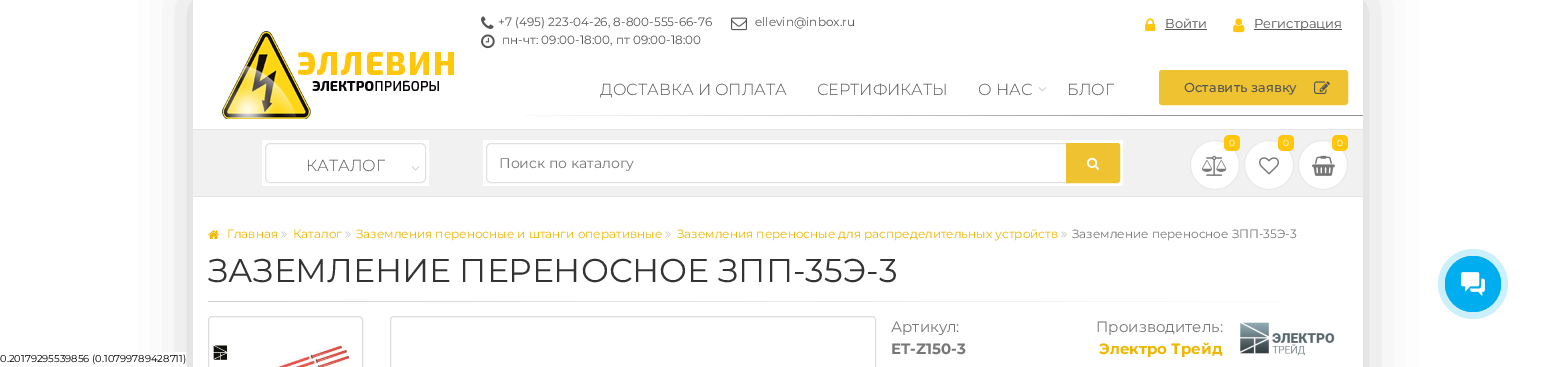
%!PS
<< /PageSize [1556 367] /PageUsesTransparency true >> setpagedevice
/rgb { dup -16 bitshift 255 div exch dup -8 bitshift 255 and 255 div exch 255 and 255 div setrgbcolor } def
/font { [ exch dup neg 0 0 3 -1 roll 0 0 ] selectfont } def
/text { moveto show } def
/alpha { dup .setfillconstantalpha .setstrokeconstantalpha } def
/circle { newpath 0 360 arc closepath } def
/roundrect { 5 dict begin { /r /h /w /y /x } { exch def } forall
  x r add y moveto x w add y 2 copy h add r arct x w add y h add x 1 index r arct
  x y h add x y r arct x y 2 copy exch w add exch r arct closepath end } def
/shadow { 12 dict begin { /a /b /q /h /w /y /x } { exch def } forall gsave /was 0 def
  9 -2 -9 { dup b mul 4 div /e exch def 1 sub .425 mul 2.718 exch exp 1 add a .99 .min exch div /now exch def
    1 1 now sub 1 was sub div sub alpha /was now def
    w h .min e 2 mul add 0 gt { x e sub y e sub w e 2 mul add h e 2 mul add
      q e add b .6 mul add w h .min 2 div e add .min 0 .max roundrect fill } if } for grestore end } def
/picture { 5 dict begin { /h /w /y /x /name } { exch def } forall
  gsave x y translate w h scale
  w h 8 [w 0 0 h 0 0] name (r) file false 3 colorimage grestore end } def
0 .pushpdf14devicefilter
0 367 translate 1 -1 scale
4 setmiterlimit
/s1 { /Montserrat-Regular 12 font 16#555555 rgb } def
/s2 { /Montserrat-Regular 13 font 16#555555 rgb } def
/s3 { /Montserrat-Light 16 font 16#555555 rgb } def
/s4 { /Montserrat-Medium 13 font 16#555555 rgb } def
/s5 { /Montserrat-Regular 9 font 16#FFFFFF rgb } def
/s6 { /Montserrat-Regular 14 font 16#777777 rgb } def
/s7 { /Montserrat-Regular 12 font 16#EEB600 rgb } def
/s8 { /Montserrat-Regular 12 font 16#777777 rgb } def
/s9 { /Montserrat-Regular 33 font 16#333333 rgb } def
/s10 { /Montserrat-Regular 15 font 16#777777 rgb } def
/s11 { /Montserrat-Bold 15 font 16#777777 rgb } def
/s12 { /Montserrat-Bold 15 font 16#EEB600 rgb } def
/s13 { /Montserrat-Regular 10 font 16#000000 rgb } def
16#FFFFFF rgb
0 0 1556 367 rectfill
gsave
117 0 moveto 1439 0 lineto 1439 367 lineto 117 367 lineto closepath 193 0 moveto 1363 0 lineto 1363 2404 lineto 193 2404 lineto closepath eoclip newpath
16#CACACA rgb
193 0 1170 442 0 25 1 shadow
grestore
(pic1.raw) 481 16 13 13 picture
s1
(+7 \(495\) 223-04-26, 8-800-555-66-76) 498 26 text
(pic2.raw) 731 17 16 14 picture
(ellevin@inbox.ru) 755 26 text
(pic3.raw) 481 34 14 15 picture
(пн-чт: 09:00-18:00, пт 09:00-18:00) 502 44 text
(pic4.raw) 1145 18 11 13 picture
s2
(Войти) 1165 28 text
1165 29 42 1 rectfill
(pic5.raw) 1233 18 12 15 picture
1254 29 88 1 rectfill
(Регистрация) 1254 28 text
(pic6.raw) 222 31 232 88 picture
(pic7.raw) 523 115 840 1 picture
s3
(ДОСТАВКА И ОПЛАТА) 600 95 text
(СЕРТИФИКАТЫ) 817 95 text
(О НАС) 978 95 text
(pic8.raw) 1038 87 9 5 picture
(БЛОГ) 1067 95 text
16#EFC231 rgb
1159.5 70.5 188 34 2.5 roundrect gsave fill grestore
stroke
s4
(Оставить заявку) 1184 92 text
(pic9.raw) 1314 81 16 13 picture
16#F2F1F1 rgb
193 130 1170 66 rectfill
16#E4E4E3 rgb
193 129 1170 1 rectfill
193 196 1170 1 rectfill
16#FFFFFF rgb
1215 165 24.5 circle gsave fill grestore
16#E9E9E9 rgb
stroke
16#FFC60B rgb
1224 135 16 16 5 roundrect fill
s5
(0) 1229 146 text
(pic10.raw) 1202 155 25 21 picture
1269 165 24.5 circle gsave fill grestore
16#E9E9E9 rgb
stroke
16#FFC60B rgb
1278 135 16 16 5 roundrect fill
s5
(0) 1283 146 text
(pic11.raw) 1259 157 20 18 picture
1323 165 24.5 circle gsave fill grestore
16#E9E9E9 rgb
stroke
16#FFC60B rgb
1332 135 16 16 5 roundrect fill
s5
(0) 1337 146 text
(pic12.raw) 1312 155 23 21 picture
262 140 167 46 rectfill
16#E1E1E1 rgb
265.5 143.5 160 39 4.5 roundrect stroke
s3
(КАТАЛОГ) 306 171 text
(pic8.raw) 411 166 9 5 picture
16#FFFFFF rgb
483 140 640 46 rectfill
16#E1E1E1 rgb
491 143.5 moveto 1066.5 143.5 lineto 1066.5 182.5 lineto 491 182.5 lineto 488.5 182.5 486.5 180.5 486.5 178 curveto 486.5 148 lineto 486.5 145.5 488.5 143.5 491 143.5 curveto closepath stroke
s6
(Поиск по каталогу) 499 168 text
16#EFC231 rgb
1066.5 143.5 moveto 1117 143.5 lineto 1118.5 143.5 1119.5 144.5 1119.5 146 curveto 1119.5 180 lineto 1119.5 181.5 1118.5 182.5 1117 182.5 curveto 1066.5 182.5 lineto closepath gsave fill grestore
stroke
(pic13.raw) 1087 157 12 13 picture
(pic14.raw) 208 230 11 9 picture
s7
(Главная) 227 238 text
(pic15.raw) 281 231 6 7 picture
(Каталог) 293 238 text
(pic15.raw) 345 231 6 7 picture
(Заземления переносные и штанги оперативные) 356 238 text
(pic15.raw) 665 231 6 7 picture
(Заземления переносные для распределительных устройств) 677 238 text
(pic15.raw) 1061 231 6 7 picture
s8
(Заземление переносное ЗПП-35Э-3) 1072 238 text
s9
(ЗАЗЕМЛЕНИЕ ПЕРЕНОСНОЕ ЗПП-35Э-3) 208 282 text
gsave 208 301 moveto 1282 301 lineto 1282 302 lineto 208 302 lineto closepath clip newpath
<< /ShadingType 2 /ColorSpace /DeviceRGB /Coords [208 302 1348 301] /Extend [true true] /Function << /FunctionType 3 /Domain [0 1] /Functions [<< /FunctionType 2 /Domain [0 1] /C0 [0.82 0.82 0.82] /C1 [0.878 0.878 0.878] /N 1 >> << /FunctionType 2 /Domain [0 1] /C0 [0.878 0.878 0.878] /C1 [0.949 0.949 0.949] /N 1 >> << /FunctionType 2 /Domain [0 1] /C0 [0.949 0.949 0.949] /C1 [1 1 1] /N 1 >>] /Bounds [0.35 0.7] /Encode [0 1 0 1 0 1] >> >> shfill grestore
16#DDDDDD rgb
208.5 316.5 154 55 3.5 roundrect stroke
(pic16.raw) 213 344 139 23 picture
390.5 316.5 485 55 3.5 roundrect stroke
s10
(Артикул:) 891 332 text
s11
(ET-Z150-3) 891 354 text
s10
(Производитель:) 1096 332 text
s12
(Электро Трейд) 1099 354 text
(pic17.raw) 1240 322 95 34 picture
16#CCEFFC rgb
1473 284 35 circle fill
16#00AEEF rgb
0.8 setlinewidth
1473 284 27.6 circle stroke
1473 284 28 circle fill
(pic18.raw) 1461 272 24 24 picture
16#FFFFFF rgb
152 352 34 15 rectfill
s13
(0.20179295539856 \(0.10799789428711\)) 0 362 text
.poppdf14devicefilter showpage
